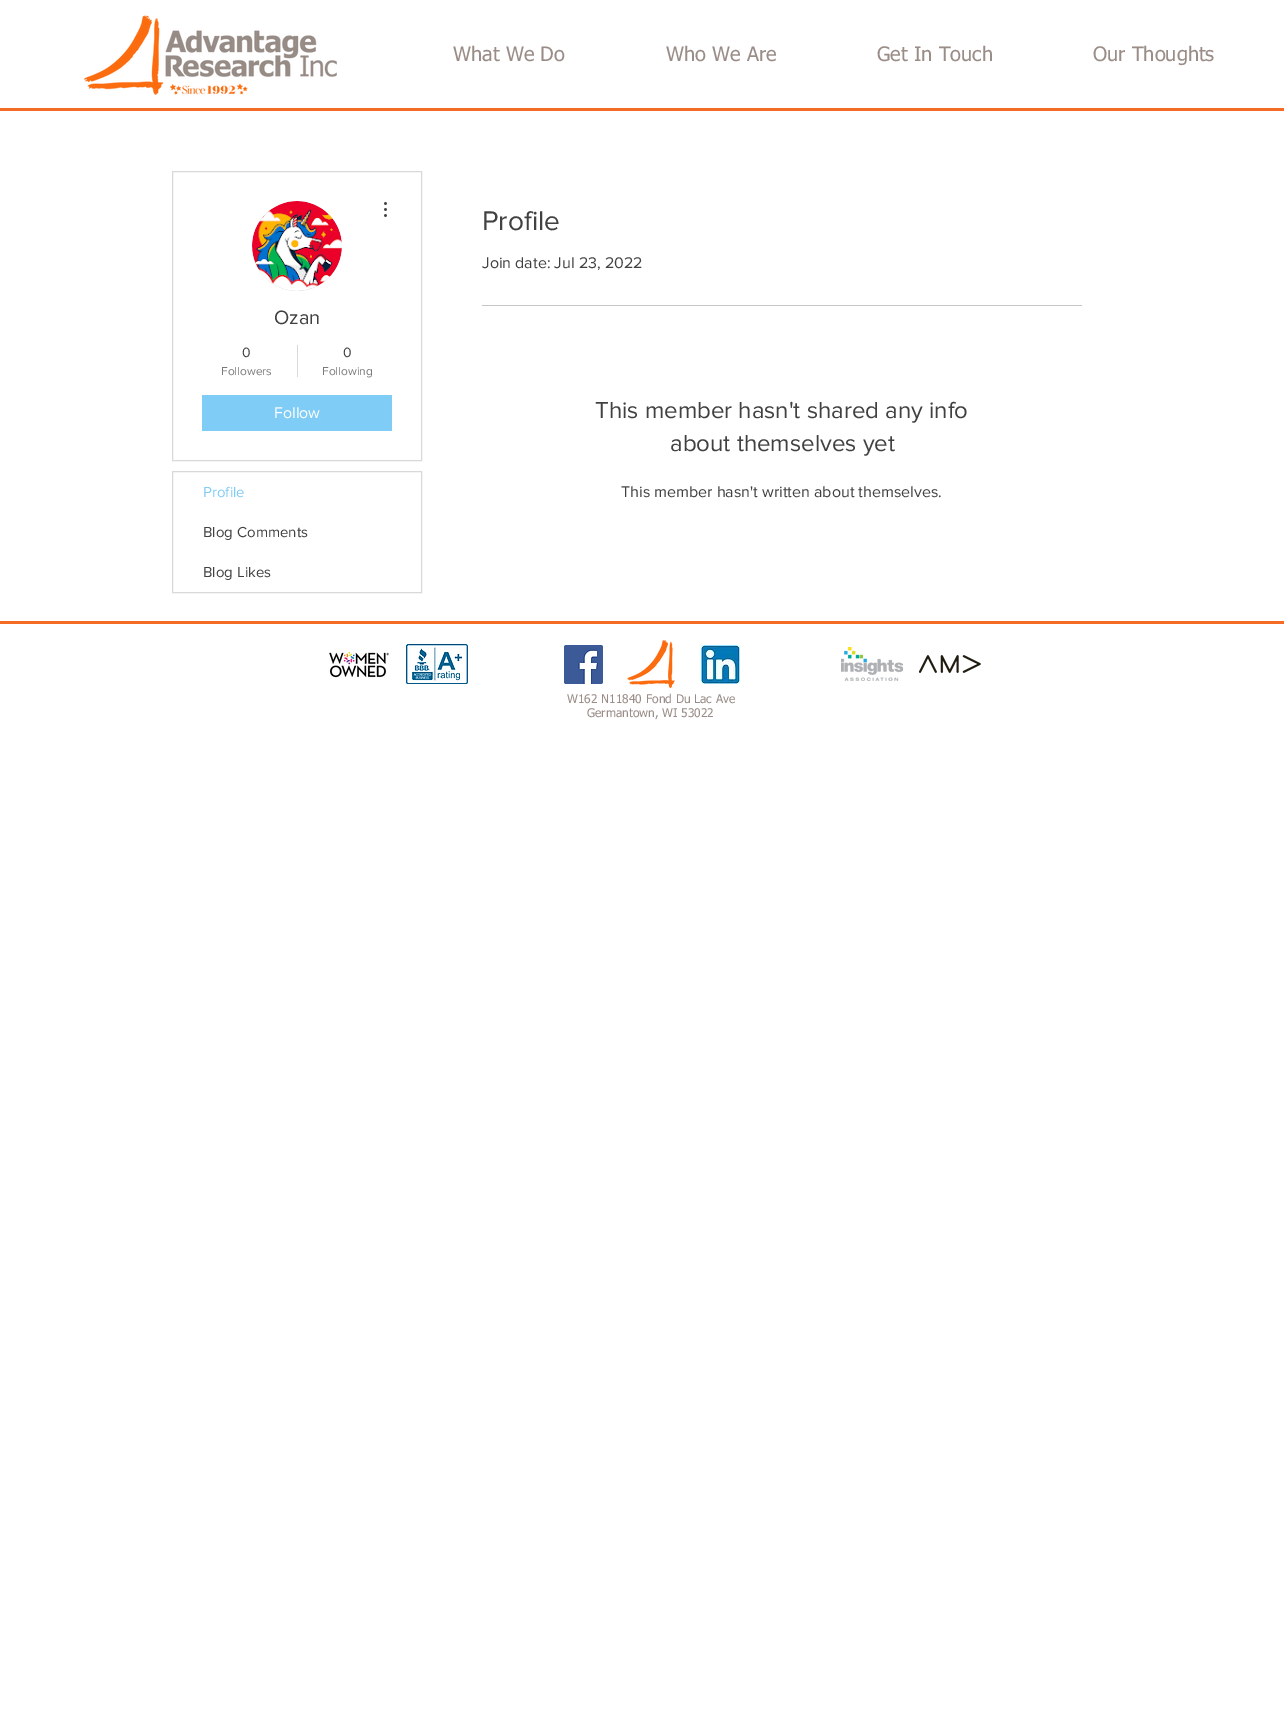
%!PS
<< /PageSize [1284 1710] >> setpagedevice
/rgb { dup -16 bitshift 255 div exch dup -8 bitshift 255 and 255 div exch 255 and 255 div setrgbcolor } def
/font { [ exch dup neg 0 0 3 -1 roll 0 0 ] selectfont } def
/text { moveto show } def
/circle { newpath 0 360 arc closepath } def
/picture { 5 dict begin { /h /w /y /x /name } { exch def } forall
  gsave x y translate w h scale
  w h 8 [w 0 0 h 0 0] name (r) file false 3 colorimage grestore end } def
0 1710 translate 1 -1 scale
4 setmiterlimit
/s1 { /tahoma-Regular 20 font 16#9A8D88 rgb } def
/s2 { /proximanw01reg-Regular 20 font 16#414141 rgb } def
/s3 { /proximanw01reg-Regular 14 font 16#414141 rgb } def
/s4 { /proximanw01reg-Regular 12 font 16#7A7A7A rgb } def
/s5 { /proximanw01reg-Regular 16 font 16#FFFFFF rgb } def
/s6 { /proximanw01reg-Regular 15 font 16#7FCCF7 rgb } def
/s7 { /proximanw01reg-Regular 15 font 16#414141 rgb } def
/s8 { /proximanw01reg-Regular 28 font 16#414141 rgb } def
/s9 { /proximanw01reg-Regular 16 font 16#414141 rgb } def
/s10 { /proximanw01reg-Regular 24 font 16#414141 rgb } def
/s11 { /tahoma-Regular 12 font 16#9A8D88 rgb } def
16#FFFFFF rgb
0 0 1284 1710 rectfill
(pic1.raw) 84 15 253 80 picture
s1
(What We Do) 453 61 text
(Who We Are) 666 61 text
(Get In Touch) 877 61 text
(Our Thoughts) 1093 61 text
16#F36B24 rgb
0 108 1284 3 rectfill
16#D9D9D9 rgb
172.5 171.5 249 289 rectstroke
16#D8D8D8 rgb
297 246 45 circle fill
(pic2.raw) 252 201 90 90 picture
(pic3.raw) 384 202 3 15 picture
s2
(Ozan) 274 324 text
s3
(0) 242 357 text
s4
(Followers) 221 375 text
16#D9D9D9 rgb
297 345 1 32 rectfill
s3
(0) 343 357 text
s4
(Following) 322 375 text
16#7FCCF7 rgb
202 395 190 36 rectfill
s5
(Follow) 274 418 text
16#D9D9D9 rgb
172.5 471.5 249 121 rectstroke
s6
(Profile) 203 497 text
s7
(Blog Comments) 203 537 text
(Blog Likes) 203 577 text
s8
(Profile) 482 230 text
s9
(Join date: Jul 23, 2022) 482 268 text
16#C6C6C6 rgb
482 305 600 1 rectfill
s10
(This member hasn't shared any info) 595 418 text
(about themselves yet) 670 451 text
s9
(This member hasn't written about themselves.) 621 497 text
16#F36B24 rgb
0 621 1284 3 rectfill
(pic4.raw) 329 651 60 27 picture
(pic5.raw) 406 644 62 40 picture
(pic6.raw) 564 645 39 39 picture
(pic7.raw) 627 640 48 49 picture
(pic8.raw) 701 645 39 39 picture
(pic9.raw) 841 647 62 34 picture
(pic10.raw) 919 655 62 18 picture
s11
(W162 N11840 Fond Du Lac Ave) 567 703 text
(Germantown, WI 53022) 587 717 text
showpage
